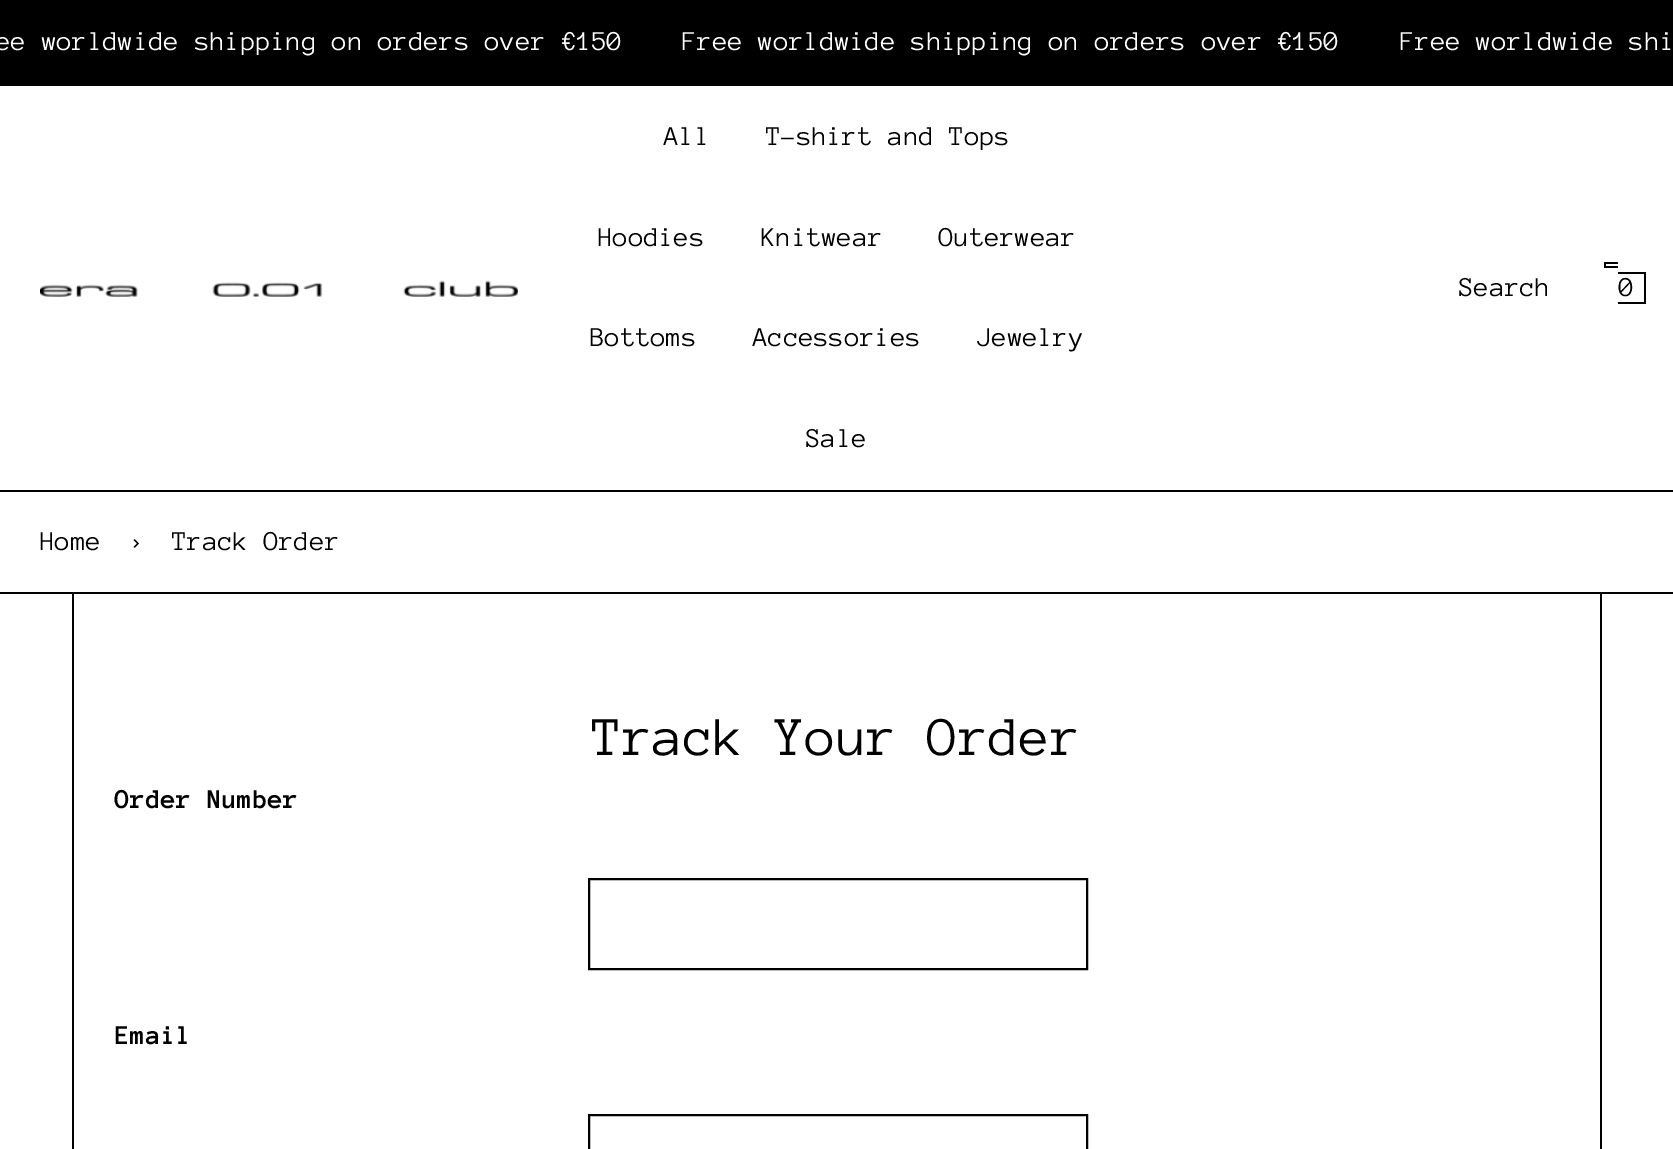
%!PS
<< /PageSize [1673 1149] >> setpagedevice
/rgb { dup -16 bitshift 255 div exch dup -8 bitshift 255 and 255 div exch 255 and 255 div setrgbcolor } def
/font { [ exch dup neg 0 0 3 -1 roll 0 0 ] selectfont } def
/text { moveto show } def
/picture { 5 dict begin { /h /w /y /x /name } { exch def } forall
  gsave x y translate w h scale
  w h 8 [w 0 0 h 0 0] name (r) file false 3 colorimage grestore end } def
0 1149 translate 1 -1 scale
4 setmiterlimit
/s1 { /AnonymousPro-Regular 28 font 16#FFFFFF rgb } def
/s2 { /AnonymousPro-Regular 28 font 16#000000 rgb } def
/s3 { /AnonymousPro-Regular 56 font 16#000000 rgb } def
/s4 { /AnonymousPro-Bold 28 font 16#000000 rgb } def
16#FFFFFF rgb
0 0 1673 1149 rectfill
16#000000 rgb
0 0 1673 86 rectfill
s1
(ee worldwide shipping on orders over €150) -4 50 text
(Free worldwide shipping on orders over €150) 682 50 text
(Free worldwide shi) 1400 50 text
16#000000 rgb
0 490 1673 2 rectfill
(pic1.raw) 40 280 478 17 picture
(All) 664 145 text
(T-shirt and Tops) 766 145 text
(Hoodies) 598 246 text
(Knitwear) 761 246 text
(Outerwear) 939 246 text
(Bottoms) 590 346 text
(Accessories) 753 346 text
(Jewelry) 977 346 text
(Sale) 806 447 text
(Search) 1459 296 text
(0) 1619 296 text
16#000001 rgb
1604 262 14 2 rectfill
1604 266 14 2 rectfill
1604 262 2 6 rectfill
1618 272 28 2 rectfill
1644 272 2 32 rectfill
1618 302 28 2 rectfill
16#000000 rgb
0 592 1673 2 rectfill
(Home) 40 550 text
(›) 129 550 text
(Track Order) 172 550 text
1600 594 2 555 rectfill
72 594 2 555 rectfill
s3
(Track Your Order) 592 755 text
s4
(Order Number) 115 808 text
2 setlinewidth
589 879 498 90 rectstroke
(Email) 115 1044 text
589 1115 498 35 rectstroke
showpage
